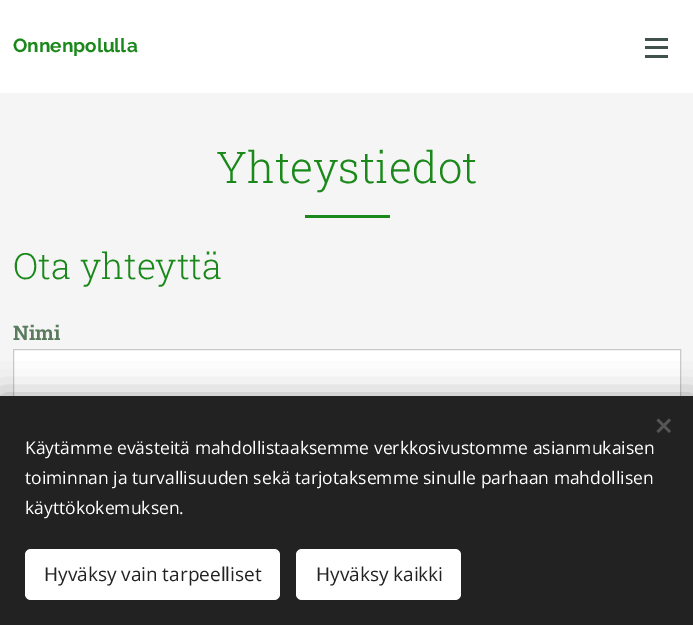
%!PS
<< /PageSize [693 625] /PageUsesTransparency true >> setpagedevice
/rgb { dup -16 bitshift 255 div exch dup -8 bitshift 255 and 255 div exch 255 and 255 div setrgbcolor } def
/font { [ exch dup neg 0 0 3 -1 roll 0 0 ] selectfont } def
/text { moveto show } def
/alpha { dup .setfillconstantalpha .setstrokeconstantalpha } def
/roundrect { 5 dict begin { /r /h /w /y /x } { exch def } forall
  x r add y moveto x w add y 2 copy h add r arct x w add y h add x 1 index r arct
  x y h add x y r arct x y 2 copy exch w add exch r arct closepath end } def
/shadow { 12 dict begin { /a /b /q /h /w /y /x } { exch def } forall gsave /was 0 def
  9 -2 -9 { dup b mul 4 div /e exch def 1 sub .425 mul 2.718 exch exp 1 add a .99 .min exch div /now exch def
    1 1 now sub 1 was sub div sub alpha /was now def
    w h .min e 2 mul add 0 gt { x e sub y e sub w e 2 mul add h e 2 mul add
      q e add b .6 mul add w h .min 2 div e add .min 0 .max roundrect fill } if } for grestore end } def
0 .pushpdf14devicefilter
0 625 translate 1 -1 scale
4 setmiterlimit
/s1 { /Raleway-Bold 19 font 16#1A881A rgb } def
/s2 { /RobotoSlab-Light 43.75 font 16#1A881A rgb } def
/s3 { /RobotoSlab-Light 36.25 font 16#1A881A rgb } def
/s4 { /RobotoSlab-Bold 20 font 16#5A7B5E rgb } def
/s5 { /OpenSans-Regular 17.5 font 16#FFFFFF rgb } def
/s6 { /OpenSans-Regular 19 font 16#222222 rgb } def
16#FFFFFF rgb
0 0 693 625 rectfill
s1
(Onnenpolulla) 13 52 text
16#3F524C rgb
645 46 23 3 rectfill
645 38 23 3 rectfill
645 55 23 3 rectfill
16#F5F5F5 rgb
0 93 693 303 rectfill
s2
(Yhteystiedot) 216 183 text
305 215 85 3 rectfill
s3
(Ota yhteyttä) 13 279 text
s4
(Nimi) 13 340 text
16#FFFFFF rgb
14 350 666 46 rectfill
16#C9C9C9 rgb
13.5 349.5 667 51 rectstroke
16#000000 rgb
0 396 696 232 0 15.5 0.33 shadow
16#222222 rgb
0 396 693 229 rectfill
16#555555 rgb
656.5 431 moveto 669 418.5 lineto 671 420.5 lineto 658.5 433 lineto closepath fill
658.5 418.5 moveto 671 431 lineto 669 433 lineto 656.5 420.5 lineto closepath fill
s5
(Käytämme evästeitä mahdollistaaksemme verkkosivustomme asianmukaisen) 25 454 text
(toiminnan ja turvallisuuden sekä tarjotaksemme sinulle parhaan mahdollisen) 25 484 text
(käyttökokemuksen.) 25 514 text
25 549 255 51 6 roundrect fill
s6
(Hyväksy vain tarpeelliset) 44 581 text
16#FFFFFF rgb
296 549 165 51 6 roundrect fill
s6
(Hyväksy kaikki) 316 581 text
.poppdf14devicefilter showpage
